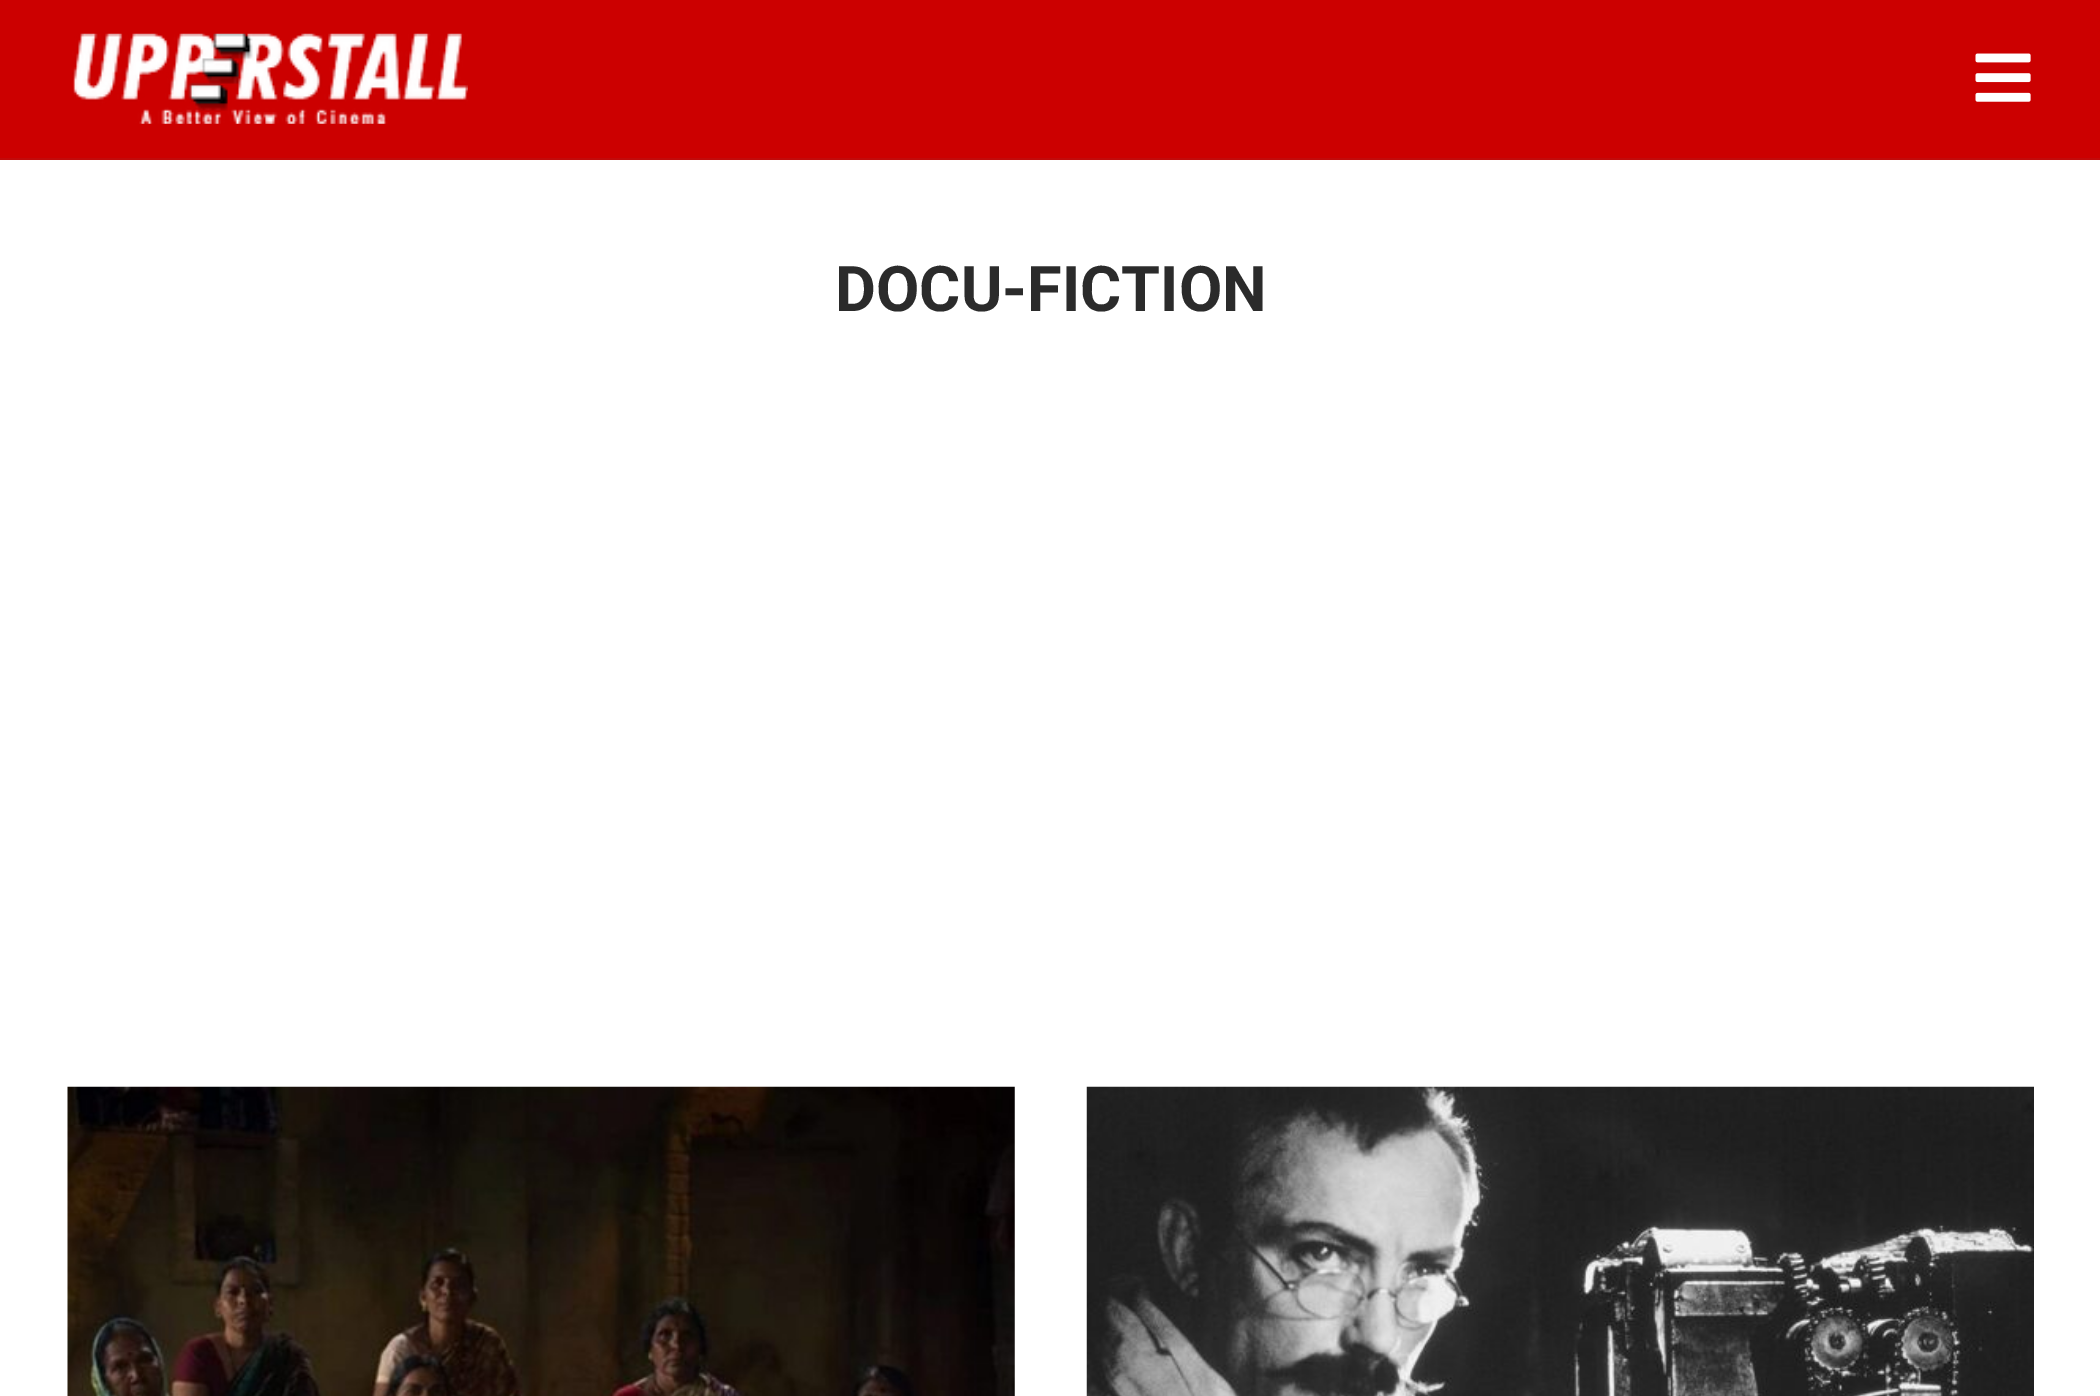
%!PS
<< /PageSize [2100 1396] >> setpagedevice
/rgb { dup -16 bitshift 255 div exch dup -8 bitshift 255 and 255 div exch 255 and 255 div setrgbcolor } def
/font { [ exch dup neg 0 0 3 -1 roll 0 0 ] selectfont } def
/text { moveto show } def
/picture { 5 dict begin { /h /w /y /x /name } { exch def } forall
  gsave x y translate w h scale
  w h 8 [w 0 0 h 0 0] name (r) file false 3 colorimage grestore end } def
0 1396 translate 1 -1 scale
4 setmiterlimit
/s1 { /Roboto-Bold 63 font 16#2B2B2B rgb } def
16#FFFFFF rgb
0 0 2100 1396 rectfill
16#CC0000 rgb
0 0 2100 158 rectfill
16#C20A0A rgb
0 158 2100 2 rectfill
(pic1.raw) 72 33 396 91 picture
(pic2.raw) 1975 53 56 49 picture
s1
(DOCU-FICTION) 835 311 text
(pic3.raw) 67 1086 948 310 picture
(pic4.raw) 1086 1086 948 310 picture
showpage
